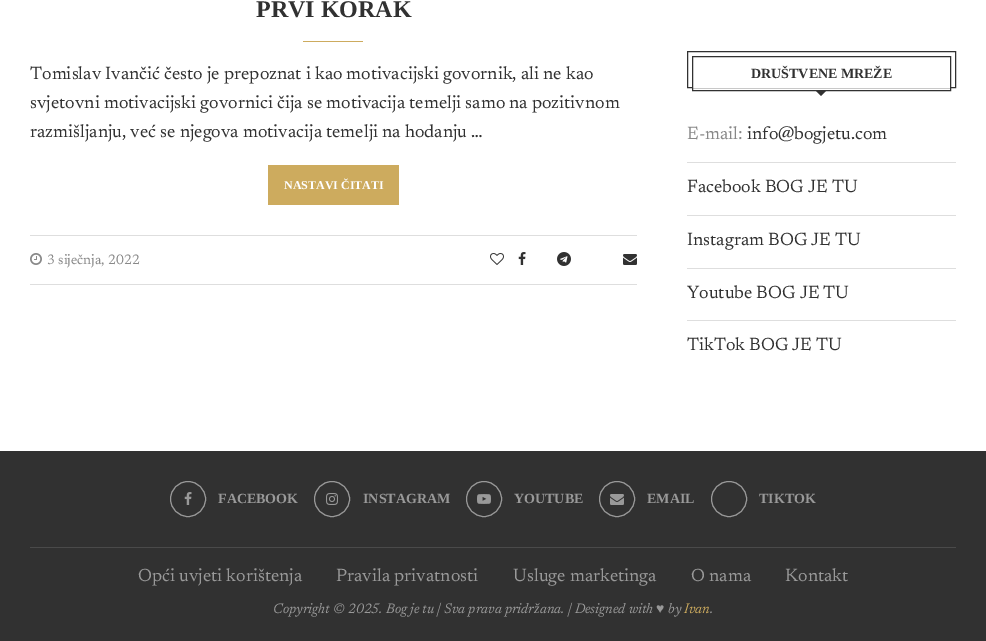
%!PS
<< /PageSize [986 641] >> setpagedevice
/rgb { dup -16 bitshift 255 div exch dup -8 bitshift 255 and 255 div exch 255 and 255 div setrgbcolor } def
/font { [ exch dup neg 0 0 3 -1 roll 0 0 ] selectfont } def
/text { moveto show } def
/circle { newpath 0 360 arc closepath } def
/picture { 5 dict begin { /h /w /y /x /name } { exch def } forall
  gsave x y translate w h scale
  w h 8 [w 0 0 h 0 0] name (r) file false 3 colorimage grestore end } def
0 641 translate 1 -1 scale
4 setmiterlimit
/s1 { /LiberationSerif-Bold 24 font 16#313131 rgb } def
/s2 { /Newsreader-Regular 18 font 16#313131 rgb } def
/s3 { /LiberationSerif-Bold 12 font 16#FFFFFF rgb } def
/s4 { /Newsreader-Regular 14 font 16#888888 rgb } def
/s5 { /LiberationSerif-Bold 14 font 16#313131 rgb } def
/s6 { /Newsreader-Regular 18 font 16#888888 rgb } def
/s7 { /LiberationSerif-Bold 14 font 16#999999 rgb } def
/s8 { /Newsreader-Regular 18 font 16#999999 rgb } def
/s9 { /Newsreader-Italic 14 font 16#999999 rgb } def
/s10 { /LiberationSerif-Italic 14 font 16#999999 rgb } def
/s11 { /Newsreader-Italic 14 font 16#CDAB5E rgb } def
16#FFFFFF rgb
0 0 986 641 rectfill
s1
(PRVI KORAK) 256 17 text
16#CDAB5E rgb
303 41 60 1 rectfill
s2
(Tomislav Ivančić često je prepoznat i kao motivacijski govornik, ali ne kao) 30 79 text
(svjetovni motivacijski govornici čija se motivacija temelji samo na pozitivnom) 30 108 text
(razmišljanju, već se njegova motivacija temelji na hodanju …) 30 137 text
16#CDAB5E rgb
268 165 131 40 rectfill
s3
(NASTAVI ČITATI) 284 189 text
16#DEDEDE rgb
30 235 607 1 rectfill
30 284 607 1 rectfill
(pic1.raw) 30 253 12 12 picture
s4
(3 siječnja, 2022) 47 264 text
(pic2.raw) 490 253 14 12 picture
(pic3.raw) 518 252 8 13 picture
(pic4.raw) 557 252 14 14 picture
(pic5.raw) 623 254 14 11 picture
16#313131 rgb
687.5 51.5 268 36 rectstroke
16#FFFFFF rgb
693 87 257 1 rectfill
16#313131 rgb
692.5 56.5 258 34 rectstroke
s5
(DRUŠTVENE MREŽE) 751 78 text
815 90 moveto 827 90 lineto 821 96 lineto closepath fill
16#DEDEDE rgb
687 162 269 1 rectfill
s6
(E-mail:) 687 139 text
s2
(info@bogjetu.com) 747 139 text
16#DEDEDE rgb
687 215 269 1 rectfill
s2
(Facebook BOG JE TU) 687 192 text
16#DEDEDE rgb
687 268 269 1 rectfill
s2
(Instagram BOG JE TU) 687 245 text
16#DEDEDE rgb
687 320 269 1 rectfill
s2
(Youtube BOG JE TU) 687 298 text
(TikTok BOG JE TU) 687 350 text
0 451 986 190 rectfill
16#4A4A4A rgb
30 547 926 1 rectfill
16#999999 rgb
188 499 17.5 circle stroke
(pic6.raw) 184 492 8 13 picture
s7
(FACEBOOK) 218 503 text
332 499 17.5 circle stroke
(pic7.raw) 326 493 12 12 picture
(INSTAGRAM) 363 503 text
484 499 17.5 circle stroke
(pic8.raw) 477 494 14 10 picture
(YOUTUBE) 514 503 text
617 499 17.5 circle stroke
(pic9.raw) 610 494 14 11 picture
(EMAIL) 647 503 text
729 499 17.5 circle stroke
(TIKTOK) 759 503 text
s8
(Opći uvjeti korištenja) 138 581 text
(Pravila privatnosti) 336 581 text
(Usluge marketinga) 513 581 text
(O nama) 691 581 text
(Kontakt) 785 581 text
s9
(Copyright © 2025. Bog je tu | Sva prava pridr) 273 613 text
s10
(ž) 534 613 text
s9
(ana. | Designed with) 540 613 text
s10
(♥) 656 613 text
s9
(by) 668 613 text
s11
(Ivan) 684 613 text
s9
(.) 710 613 text
showpage
